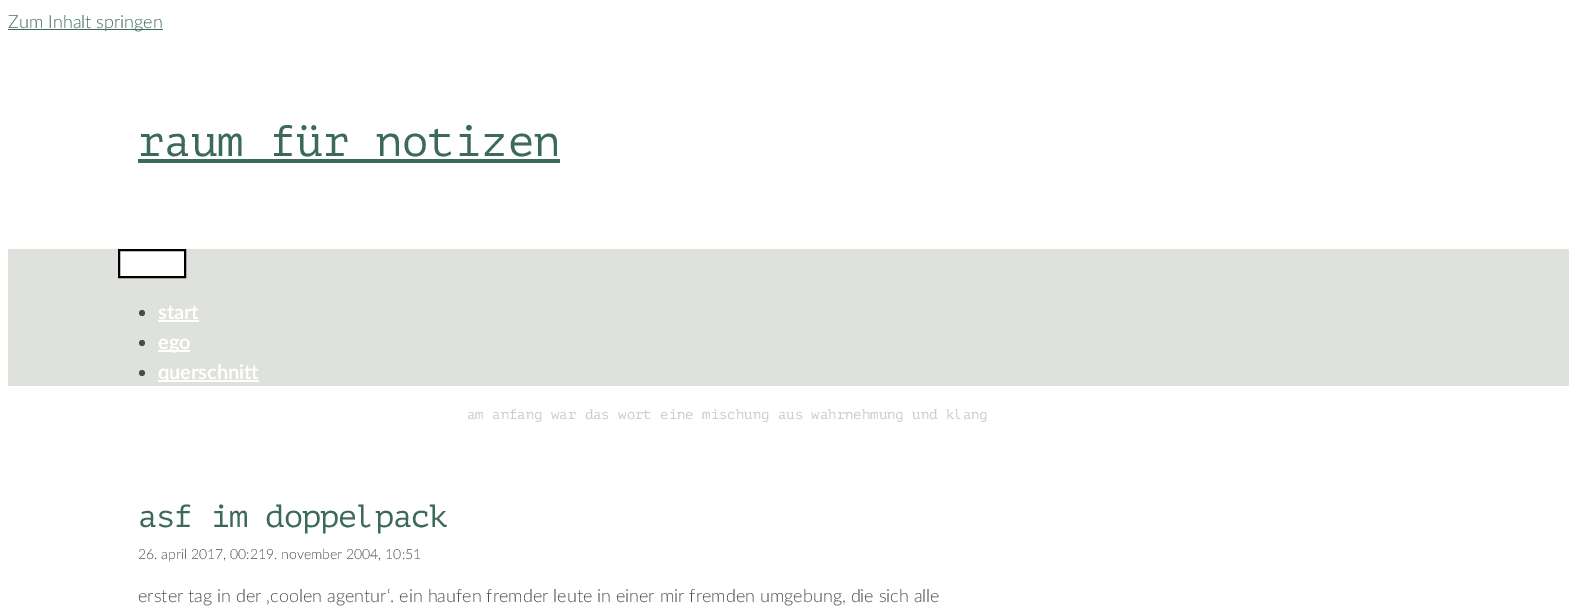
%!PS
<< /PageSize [1577 610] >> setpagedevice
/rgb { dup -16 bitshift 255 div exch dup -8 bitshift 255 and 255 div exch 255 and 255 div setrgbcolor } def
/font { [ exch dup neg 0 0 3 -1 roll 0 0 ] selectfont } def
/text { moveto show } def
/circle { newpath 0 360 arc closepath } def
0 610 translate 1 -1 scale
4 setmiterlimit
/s1 { /Lato-Light 18 font 16#3B6A5A rgb } def
/s2 { /PTMono-Regular 44 font 16#3B6A5A rgb } def
/s3 { /PTMono-Regular 14 font 16#CCCCCC rgb } def
/s4 { /Lato-Light 14 font 16#4B4B4B rgb } def
/s5 { /Lato-Light 18 font 16#4B4B4B rgb } def
16#FFFFFF rgb
0 0 1577 610 rectfill
16#3B6A5A rgb
8 29 155 1 rectfill
s1
(Zum Inhalt springen) 8 28 text
s2
(raum für notizen) 138 156 text
138 159 422 4 rectfill
16#DFE1DD rgb
8 249 1561 137 rectfill
16#FFFFFF rgb
119 250 moveto 185 250 lineto 185 277 lineto 119 277 lineto closepath gsave fill grestore
16#000000 rgb
2 setlinewidth
stroke
16#4B4B4B rgb
142 313 3 circle fill
/Lato-Bold 20 font
16#FFFFFF rgb
158 319 moveto -0.1 0 (start) ashow
158 320 41 2 rectfill
16#4B4B4B rgb
142 343 3 circle fill
16#FFFFFF rgb
158 350 32 2 rectfill
158 349 moveto -0.1 0 (ego) ashow
16#4B4B4B rgb
142 373 3 circle fill
16#FFFFFF rgb
158 380 101 2 rectfill
158 379 moveto -0.1 0 (querschnitt) ashow
s3
(am anfang war das wort eine mischung aus wahrnehmung und klang) 467 419 text
/PTMono-Regular 32 font
16#3B6A5A rgb
138 527 moveto -1 0 (asf im doppelpack) ashow
s4
(26. april 2017, 00:219. november 2004, 10:51) 138 559 text
s5
(erster tag in der ‚coolen agentur‘. ein haufen fremder leute in einer mir fremden umgebung, die sich alle) 138 602 text
showpage
